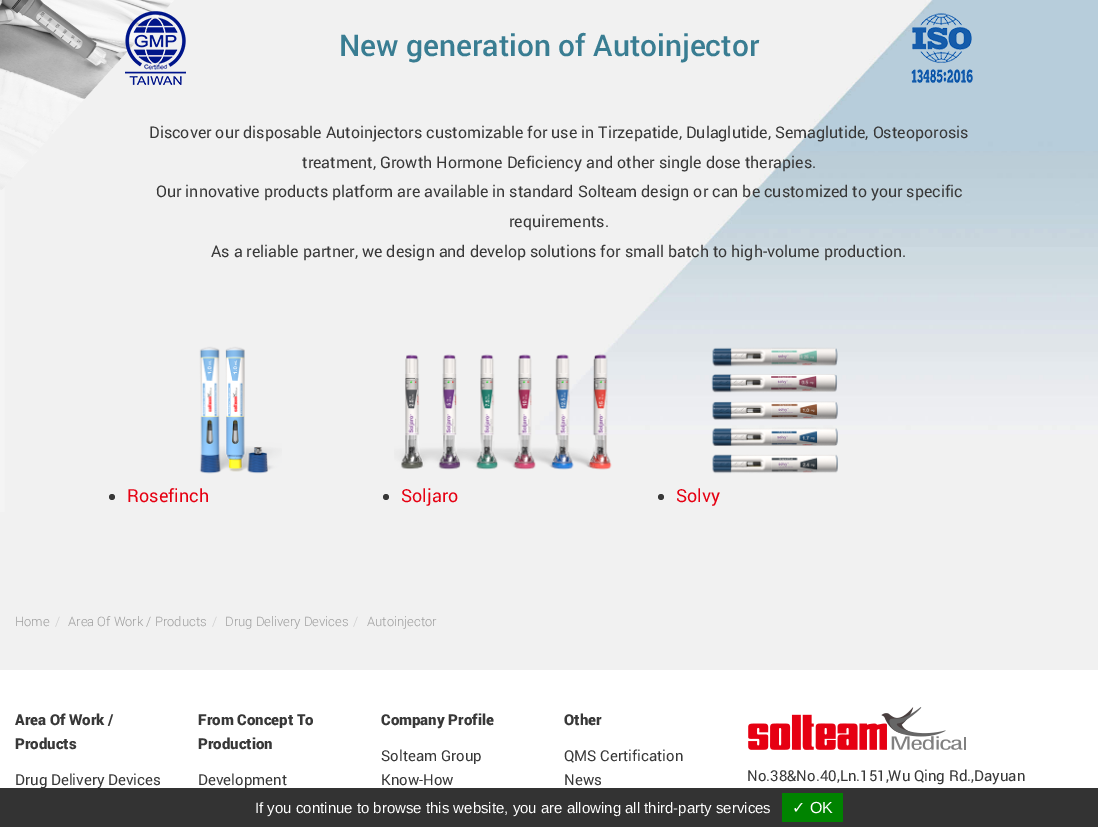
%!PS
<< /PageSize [1098 827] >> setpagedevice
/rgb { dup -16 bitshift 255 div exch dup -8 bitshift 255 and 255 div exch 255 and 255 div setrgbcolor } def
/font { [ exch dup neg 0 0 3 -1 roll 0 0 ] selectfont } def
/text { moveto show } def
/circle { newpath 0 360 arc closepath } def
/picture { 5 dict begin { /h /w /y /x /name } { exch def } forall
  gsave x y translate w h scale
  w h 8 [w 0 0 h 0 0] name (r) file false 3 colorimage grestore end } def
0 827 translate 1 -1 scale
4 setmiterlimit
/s1 { /Roboto-Medium 30 font 16#397D92 rgb } def
/s2 { /Roboto-Regular 16 font 16#383838 rgb } def
/s3 { /Roboto-Regular 18 font 16#E60012 rgb } def
/s4 { /Roboto-Light 13 font 16#9E9E9E rgb } def
/s5 { /Roboto-Light 13 font 16#CCCCCC rgb } def
/s6 { /Roboto-Black 15 font 16#383838 rgb } def
/s7 { /Roboto-Regular 15 font 16#383838 rgb } def
/s8 { /LiberationSans-Regular 15 font 16#FFFFFF rgb } def
/s9 { /DejaVuSans-Regular 16 font 16#FFFFFF rgb } def
/s10 { /LiberationSans-Regular 16 font 16#FFFFFF rgb } def
16#FFFFFF rgb
0 0 1098 827 rectfill
(pic1.raw) 0 0 1098 670 picture
(pic2.raw) 0 0 174 190 picture
(pic3.raw) 125 11 61 74 picture
s1
(New generation of Autoinjector) 339 56 text
(pic4.raw) 911 13 62 70 picture
s2
(Discover our disposable Autoinjectors customizable for use in Tirzepatide, Dulaglutide, Semaglutide, Osteoporosis) 149 138 text
(treatment, Growth Hormone Deficiency and other single dose therapies.) 302 168 text
(Our innovative products platform are available in standard Solteam design or can be customized to your specific) 156 197 text
(requirements.) 509 227 text
(As a reliable partner, we design and develop solutions for small batch to high-volume production.) 211 257 text
(pic5.raw) 199 346 83 128 picture
112 497 3 circle fill
s3
(Rosefinch) 127 502 text
(pic6.raw) 394 354 218 116 picture
16#383838 rgb
386 497 3 circle fill
s3
(Soljaro) 401 502 text
(pic7.raw) 711 347 127 127 picture
16#383838 rgb
661 497 3 circle fill
s3
(Solvy) 676 502 text
s4
(Home) 15 626 text
s5
(/) 55 626 text
s4
(Area Of Work / Products) 68 626 text
s5
(/) 212 626 text
s4
(Drug Delivery Devices) 225 626 text
s5
(/) 353 626 text
s4
(Autoinjector) 367 626 text
s6
(Area Of Work /) 15 725 text
(Products) 15 749 text
s7
(Drug Delivery Devices) 15 785 text
s6
(From Concept To) 198 725 text
(Production) 198 749 text
s7
(Development) 198 785 text
s6
(Company Profile) 381 725 text
s7
(Solteam Group) 381 761 text
(Know-How) 381 785 text
s6
(Other) 564 725 text
s7
(QMS Certification) 564 761 text
(News) 564 785 text
(pic8.raw) 748 707 218 43 picture
(No.38&No.40,Ln.151,Wu Qing Rd.,Dayuan) 747 781 text
16#333333 rgb
0 788 1098 39 rectfill
s8
(If you continue to browse this website, you are allowing all third-party services) 255 813 text
16#008300 rgb
782 793 61 29 rectfill
s9
(✓) 792 813 text
s10
(OK) 810 813 text
showpage
